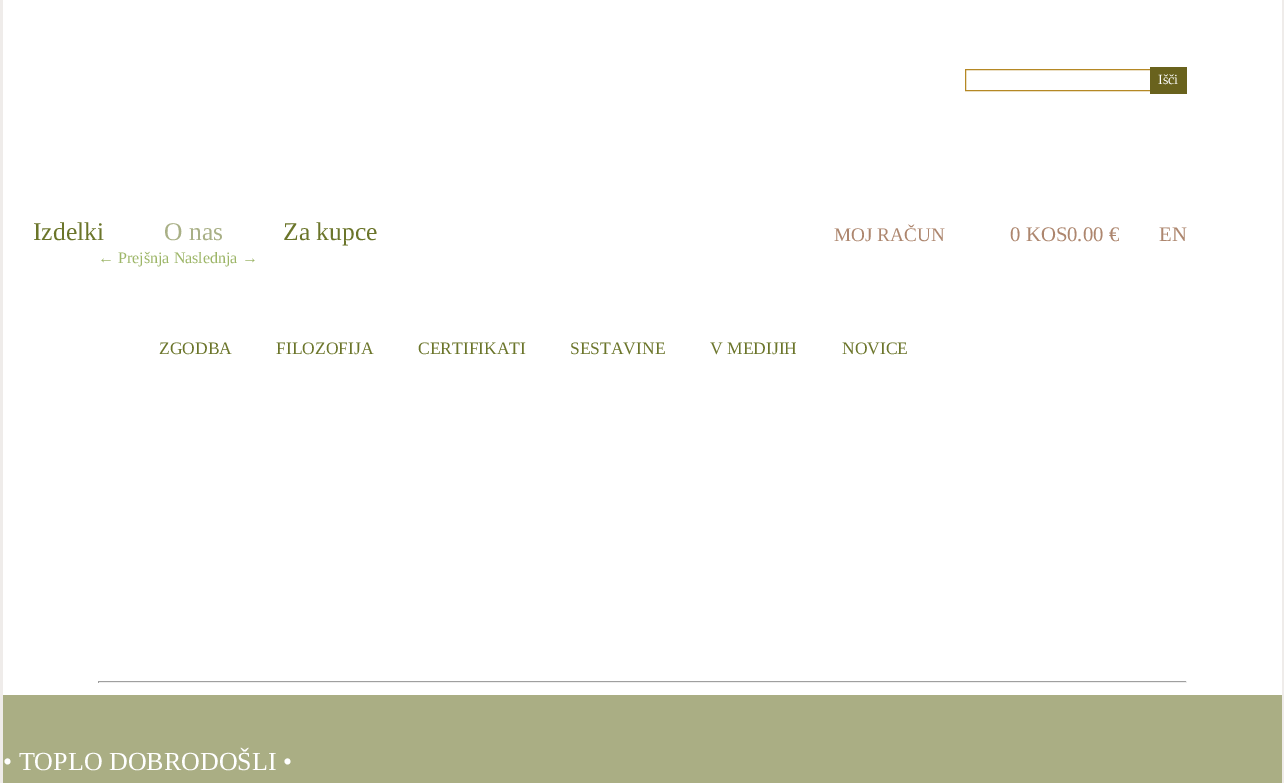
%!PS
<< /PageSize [1284 783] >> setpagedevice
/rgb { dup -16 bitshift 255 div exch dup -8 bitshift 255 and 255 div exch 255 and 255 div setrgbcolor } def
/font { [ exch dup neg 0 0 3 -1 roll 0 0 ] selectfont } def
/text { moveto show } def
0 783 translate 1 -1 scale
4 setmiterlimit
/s1 { /LiberationSerif-Regular 14 font 16#FFFFFF rgb } def
/s2 { /LiberationSerif-Regular 25.5 font 16#6B752A rgb } def
/s3 { /LiberationSerif-Regular 25.5 font 16#A9B086 rgb } def
/s4 { /LiberationSerif-Regular 17.5 font 16#6B752A rgb } def
/s5 { /LiberationSerif-Regular 19.25 font 16#AD866E rgb } def
/s6 { /LiberationSerif-Regular 20.75 font 16#AD866E rgb } def
/s7 { /LiberationSerif-Regular 16 font 16#9DB668 rgb } def
/s8 { /LiberationSerif-Regular 26 font 16#FFFFFF rgb } def
16#EFECEA rgb
0 0 1284 783 rectfill
16#FFFFFF rgb
3 0 1279 695 rectfill
16#B58824 rgb
965.5 69.5 185 21 rectstroke
16#69621D rgb
1150 67 37 27 rectfill
s1
(Išči) 1158 84 text
s2
(Izdelki) 33 240 text
(Za kupce) 283 240 text
s3
(O nas) 164 240 text
s4
(ZGODBA) 159 354 text
(FILOZOFIJA) 276 354 text
(CERTIFIKATI) 418 354 text
(SESTAVINE) 570 354 text
(V MEDIJIH) 710 354 text
(NOVICE) 842 354 text
s5
(MOJ RAČUN) 834 241 text
s6
(0 KOS0.00 €) 1010 241 text
(EN) 1159 241 text
s7
(← Prejšnja Naslednja →) 98 263 text
16#9F9F9F rgb
98 681 1089 1 rectfill
16#EEEEEE rgb
1186 681 1 2 rectfill
98 682 1089 1 rectfill
16#9F9F9F rgb
98 681 1 2 rectfill
16#AAAE84 rgb
3 695 1279 88 rectfill
s8
(• TOPLO DOBRODOŠLI •) 3 770 text
showpage
